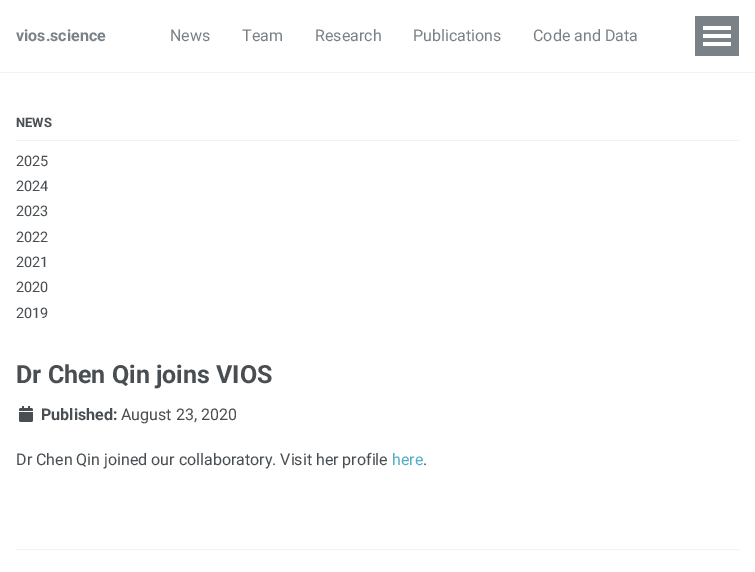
%!PS
<< /PageSize [755 572] >> setpagedevice
/rgb { dup -16 bitshift 255 div exch dup -8 bitshift 255 and 255 div exch 255 and 255 div setrgbcolor } def
/font { [ exch dup neg 0 0 3 -1 roll 0 0 ] selectfont } def
/text { moveto show } def
/picture { 5 dict begin { /h /w /y /x /name } { exch def } forall
  gsave x y translate w h scale
  w h 8 [w 0 0 h 0 0] name (r) file false 3 colorimage grestore end } def
0 572 translate 1 -1 scale
4 setmiterlimit
/s1 { /Roboto-Bold 16 font 16#7A8288 rgb } def
/s2 { /Roboto-Regular 16 font 16#7A8288 rgb } def
/s3 { /Roboto-Bold 13 font 16#494E52 rgb } def
/s4 { /Roboto-Regular 14.5 font 16#494E52 rgb } def
/s5 { /Roboto-Bold 25 font 16#494E52 rgb } def
/s6 { /Roboto-Bold 16 font 16#494E52 rgb } def
/s7 { /Roboto-Regular 16 font 16#494E52 rgb } def
/s8 { /Roboto-Regular 16 font 16#52ADC8 rgb } def
16#FFFFFF rgb
0 0 755 572 rectfill
16#F2F3F3 rgb
0 72 755 1 rectfill
s1
(vios.science) 16 41 text
s2
(News) 170 41 text
(Team) 242 41 text
(Research) 315 41 text
(Publications) 413 41 text
(Code and Data) 533 41 text
695 16 44 40 rectfill
16#FFFFFF rgb
703 34 28 4 rectfill
703 26 28 4 rectfill
703 42 28 4 rectfill
16#F2F3F3 rgb
16 140 723 1 rectfill
s3
(NEWS) 16 127 text
s4
(2025) 16 166 text
(2024) 16 191 text
(2023) 16 216 text
(2022) 16 242 text
(2021) 16 267 text
(2020) 16 292 text
(2019) 16 318 text
s5
(Dr Chen Qin joins VIOS) 16 383 text
(pic1.raw) 19 406 14 16 picture
s6
(Published:) 41 420 text
s7
(August 23, 2020) 121 420 text
(Dr Chen Qin joined our collaboratory. Visit her profile) 16 465 text
s8
(here) 392 465 text
s7
(.) 423 465 text
16#F2F3F3 rgb
16 549 723 1 rectfill
showpage
